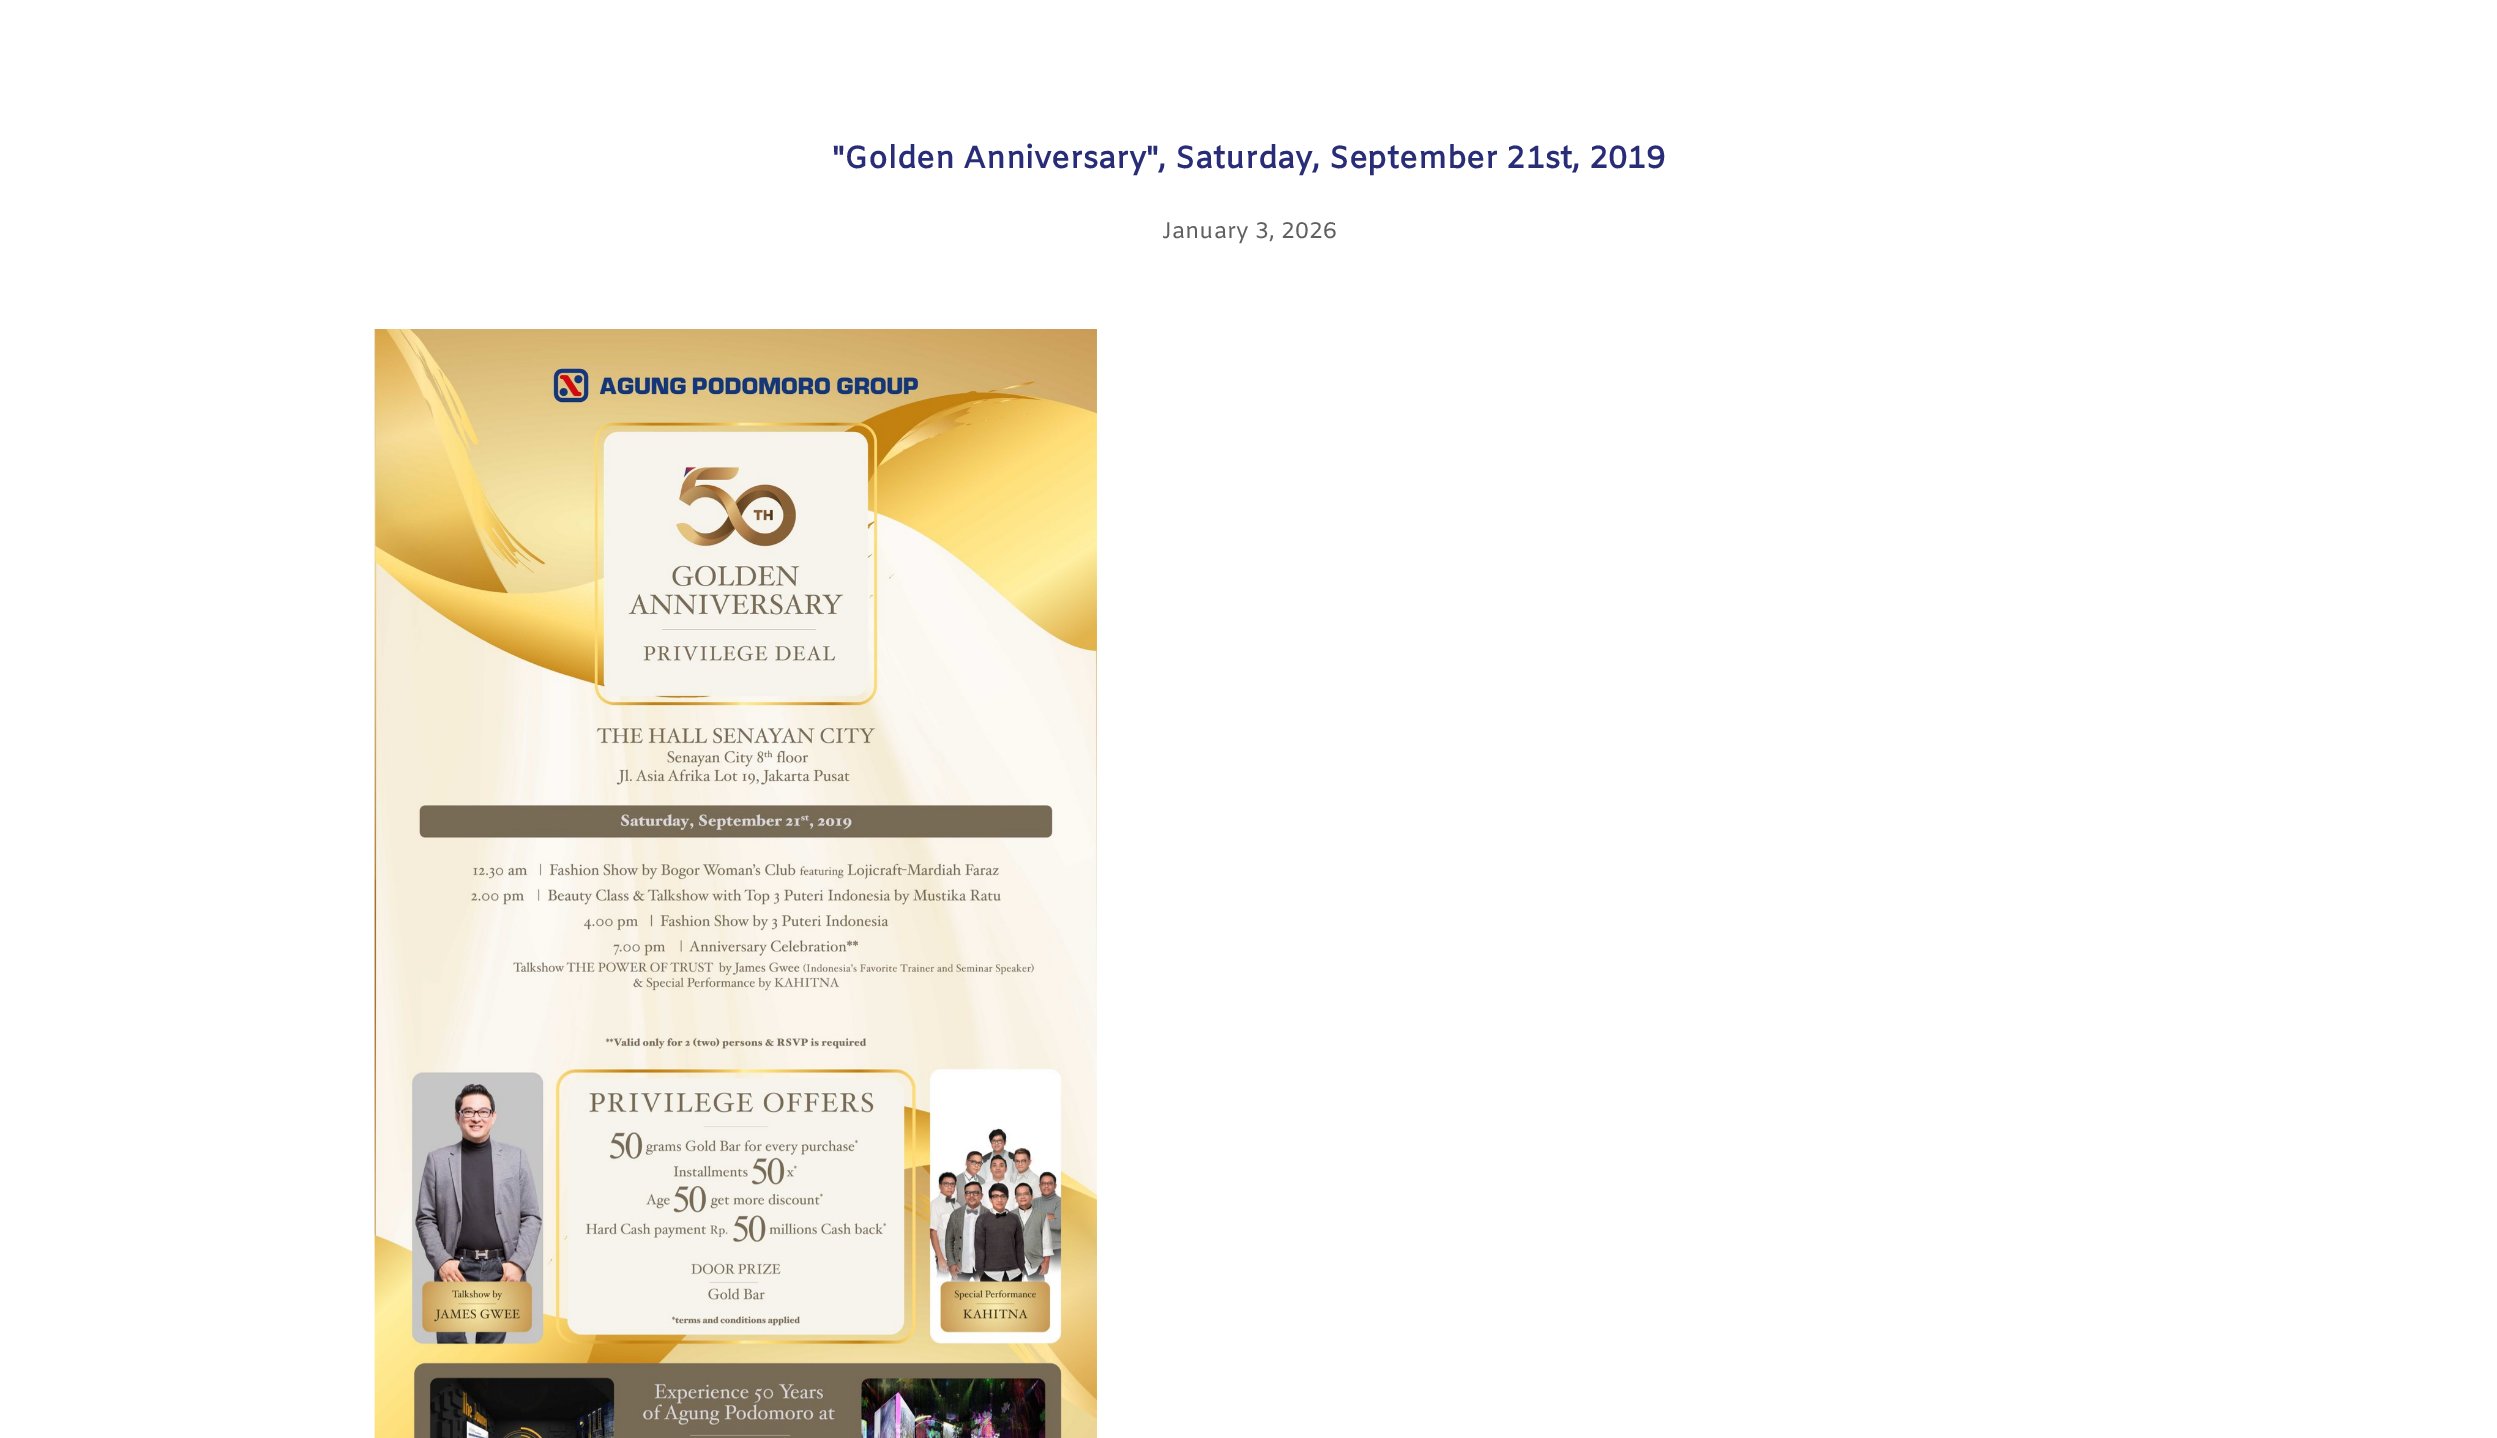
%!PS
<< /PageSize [2497 1438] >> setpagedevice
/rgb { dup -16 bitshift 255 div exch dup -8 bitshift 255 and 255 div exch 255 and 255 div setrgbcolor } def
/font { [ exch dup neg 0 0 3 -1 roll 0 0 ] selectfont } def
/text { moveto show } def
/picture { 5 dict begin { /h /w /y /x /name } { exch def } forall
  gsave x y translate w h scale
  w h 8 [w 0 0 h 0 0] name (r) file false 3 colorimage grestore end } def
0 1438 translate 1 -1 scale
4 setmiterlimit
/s1 { /Amiko-Bold 30.8 font 16#292D77 rgb } def
/s2 { /Amiko-Regular 22.5 font 16#606060 rgb } def
16#FFFFFF rgb
0 0 2497 1438 rectfill
s1
("Golden Anniversary", Saturday, September 21st, 2019) 832 168 text
s2
(January 3, 2026) 1162 238 text
(pic1.raw) 374 329 723 1109 picture
showpage
